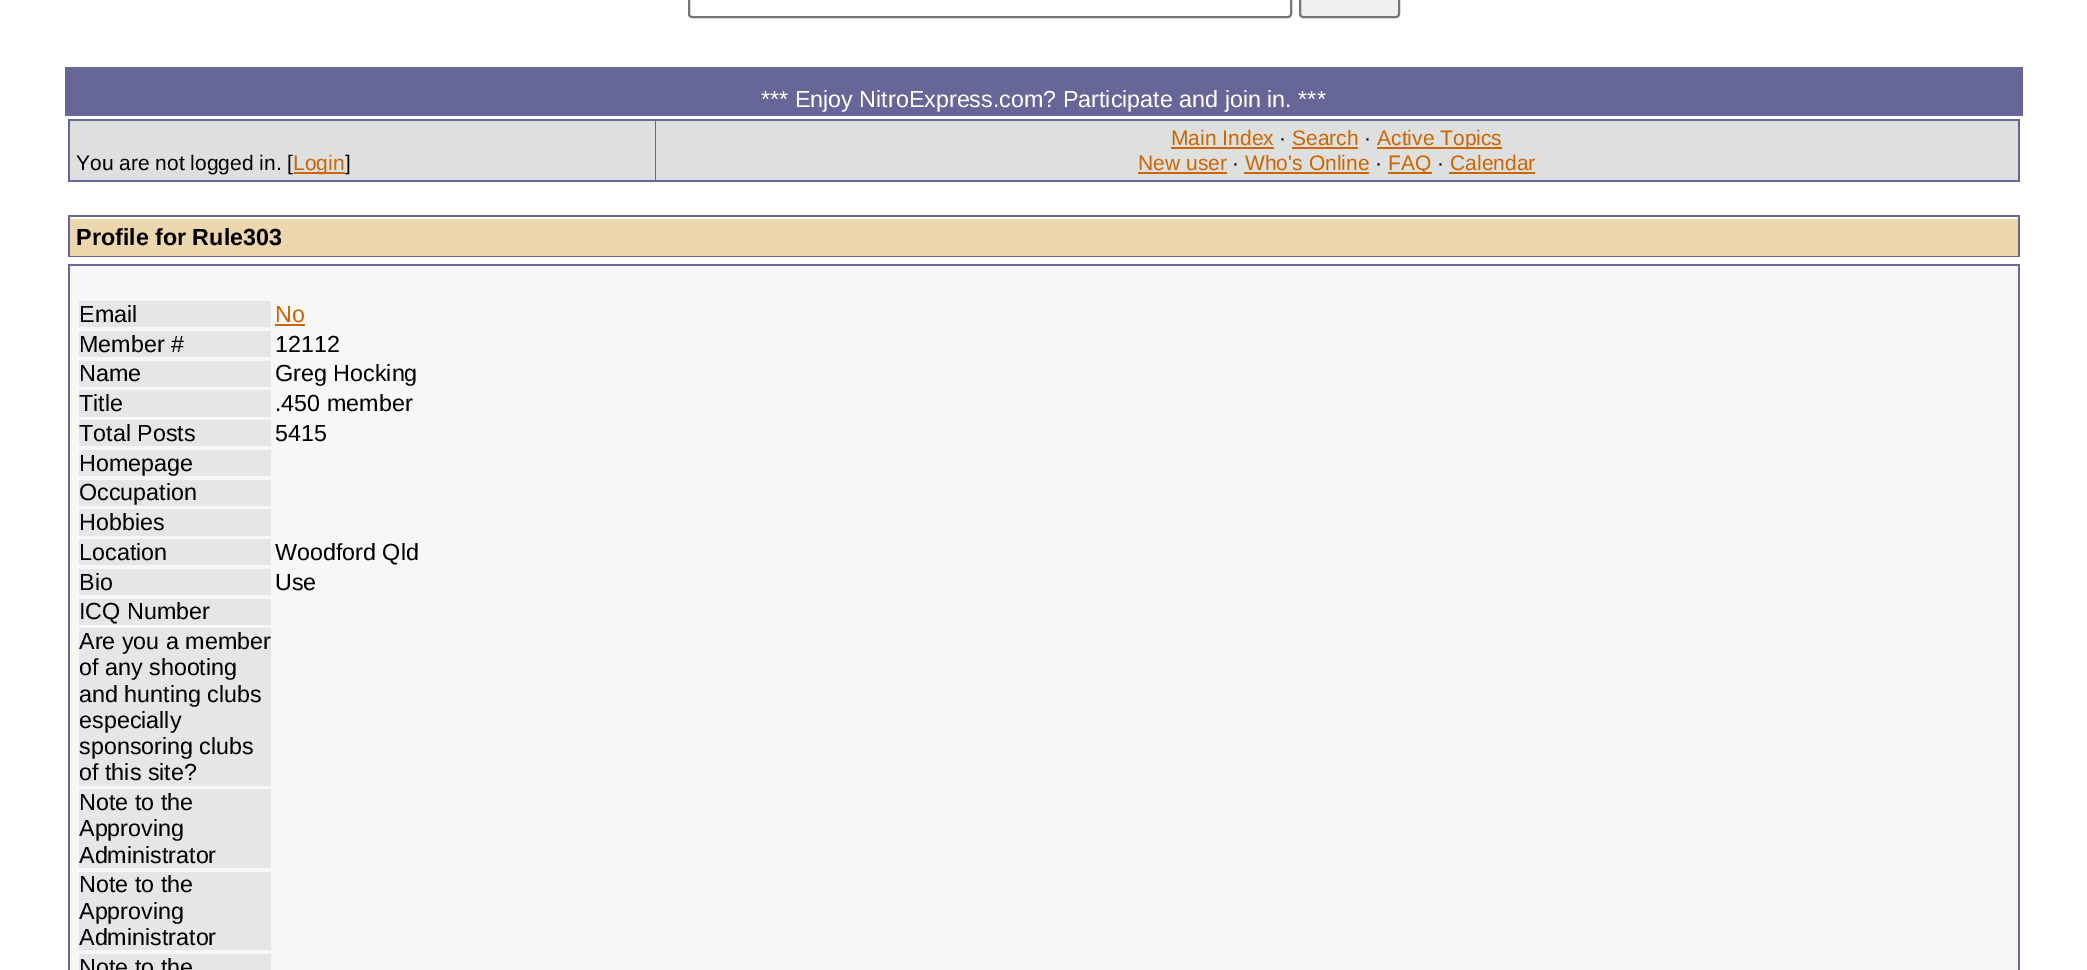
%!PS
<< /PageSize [2087 970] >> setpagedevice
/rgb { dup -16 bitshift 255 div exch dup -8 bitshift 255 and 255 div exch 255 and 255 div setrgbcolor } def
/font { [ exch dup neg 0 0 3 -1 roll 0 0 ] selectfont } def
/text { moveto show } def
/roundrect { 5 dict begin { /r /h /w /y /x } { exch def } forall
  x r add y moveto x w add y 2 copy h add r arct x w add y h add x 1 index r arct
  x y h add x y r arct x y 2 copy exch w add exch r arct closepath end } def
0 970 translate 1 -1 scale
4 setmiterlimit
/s1 { /LiberationSans-Regular 23.3 font 16#FFFFFF rgb } def
/s2 { /LiberationSans-Regular 21 font 16#000000 rgb } def
/s3 { /LiberationSans-Regular 21 font 16#CC6600 rgb } def
/s4 { /LiberationSans-Bold 23.3 font 16#000000 rgb } def
/s5 { /LiberationSans-Regular 23.3 font 16#000000 rgb } def
/s6 { /LiberationSans-Regular 23.3 font 16#CC6600 rgb } def
16#FFFFFF rgb
0 0 2087 970 rectfill
16#767676 rgb
2 setlinewidth
689 -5 602 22 3 roundrect stroke
16#EFEFEF rgb
1300 -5 99 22 3 roundrect gsave fill grestore
16#767676 rgb
stroke
16#666699 rgb
65 67 1958 49 rectfill
s1
(*** Enjoy NitroExpress.com? Participate and join in. ***) 761 107 text
16#666699 rgb
68 119 1952 63 rectfill
16#DEDFDF rgb
70 121 585 59 rectfill
s2
(You are not logged in. [) 76 170 text
16#CC6600 rgb
294 172 51 2 rectfill
(Login) 293 170 text
s2
(]) 345 170 text
16#DEDFDF rgb
656 121 1362 59 rectfill
s3
(Main Index) 1171 145 text
1171 147 103 2 rectfill
s2
(·) 1279 145 text
s3
(Search) 1292 145 text
1292 147 66 2 rectfill
s2
(·) 1364 145 text
16#CC6600 rgb
1377 147 125 2 rectfill
(Active Topics) 1377 145 text
(New user) 1138 170 text
1138 172 89 2 rectfill
s2
(·) 1232 170 text
s3
(Who's Online) 1245 170 text
1244 172 125 2 rectfill
s2
(·) 1375 170 text
16#CC6600 rgb
1388 172 44 2 rectfill
(FAQ) 1388 170 text
s2
(·) 1437 170 text
s3
(Calendar) 1450 170 text
1449 172 86 2 rectfill
16#666699 rgb
68 215 1952 42 rectfill
16#EBD6AD rgb
70 219 1948 37 rectfill
16#FFFFFF rgb
70 217 1948 2 rectfill
s4
(Profile for Rule303) 76 245 text
16#666699 rgb
68 264 1952 706 rectfill
16#F7F7F7 rgb
70 266 1948 704 rectfill
16#E6E6E6 rgb
79 301 192 26 rectfill
s5
(Email) 79 322 text
s6
(No) 275 322 text
275 324 30 2 rectfill
16#E6E6E6 rgb
79 331 192 26 rectfill
s5
(Member #) 79 352 text
(12112) 275 352 text
16#E6E6E6 rgb
79 361 192 26 rectfill
s5
(Name) 79 381 text
(Greg Hocking) 275 381 text
16#E6E6E6 rgb
79 390 192 27 rectfill
s5
(Title) 79 411 text
(.450 member) 275 411 text
16#E6E6E6 rgb
79 420 192 26 rectfill
s5
(Total Posts) 79 441 text
(5415) 275 441 text
16#E6E6E6 rgb
79 450 192 26 rectfill
s5
(Homepage) 79 471 text
16#E6E6E6 rgb
79 480 192 26 rectfill
s5
(Occupation) 79 500 text
16#E6E6E6 rgb
79 509 192 27 rectfill
s5
(Hobbies) 79 530 text
16#E6E6E6 rgb
79 539 192 26 rectfill
s5
(Location) 79 560 text
(Woodford Qld) 275 560 text
16#E6E6E6 rgb
79 569 192 26 rectfill
s5
(Bio) 79 590 text
(Use) 275 590 text
16#E6E6E6 rgb
79 599 192 26 rectfill
s5
(ICQ Number) 79 619 text
16#E6E6E6 rgb
79 628 192 158 rectfill
s5
(Are you a member) 79 649 text
(of any shooting) 79 675 text
(and hunting clubs) 79 702 text
(especially) 79 728 text
(sponsoring clubs) 79 754 text
(of this site?) 79 780 text
16#E6E6E6 rgb
79 789 192 79 rectfill
s5
(Note to the) 79 810 text
(Approving) 79 836 text
(Administrator) 79 863 text
16#E6E6E6 rgb
79 872 192 78 rectfill
s5
(Note to the) 79 892 text
(Approving) 79 919 text
(Administrator) 79 945 text
16#E6E6E6 rgb
79 954 192 16 rectfill
s5
(Note to the) 79 975 text
showpage
